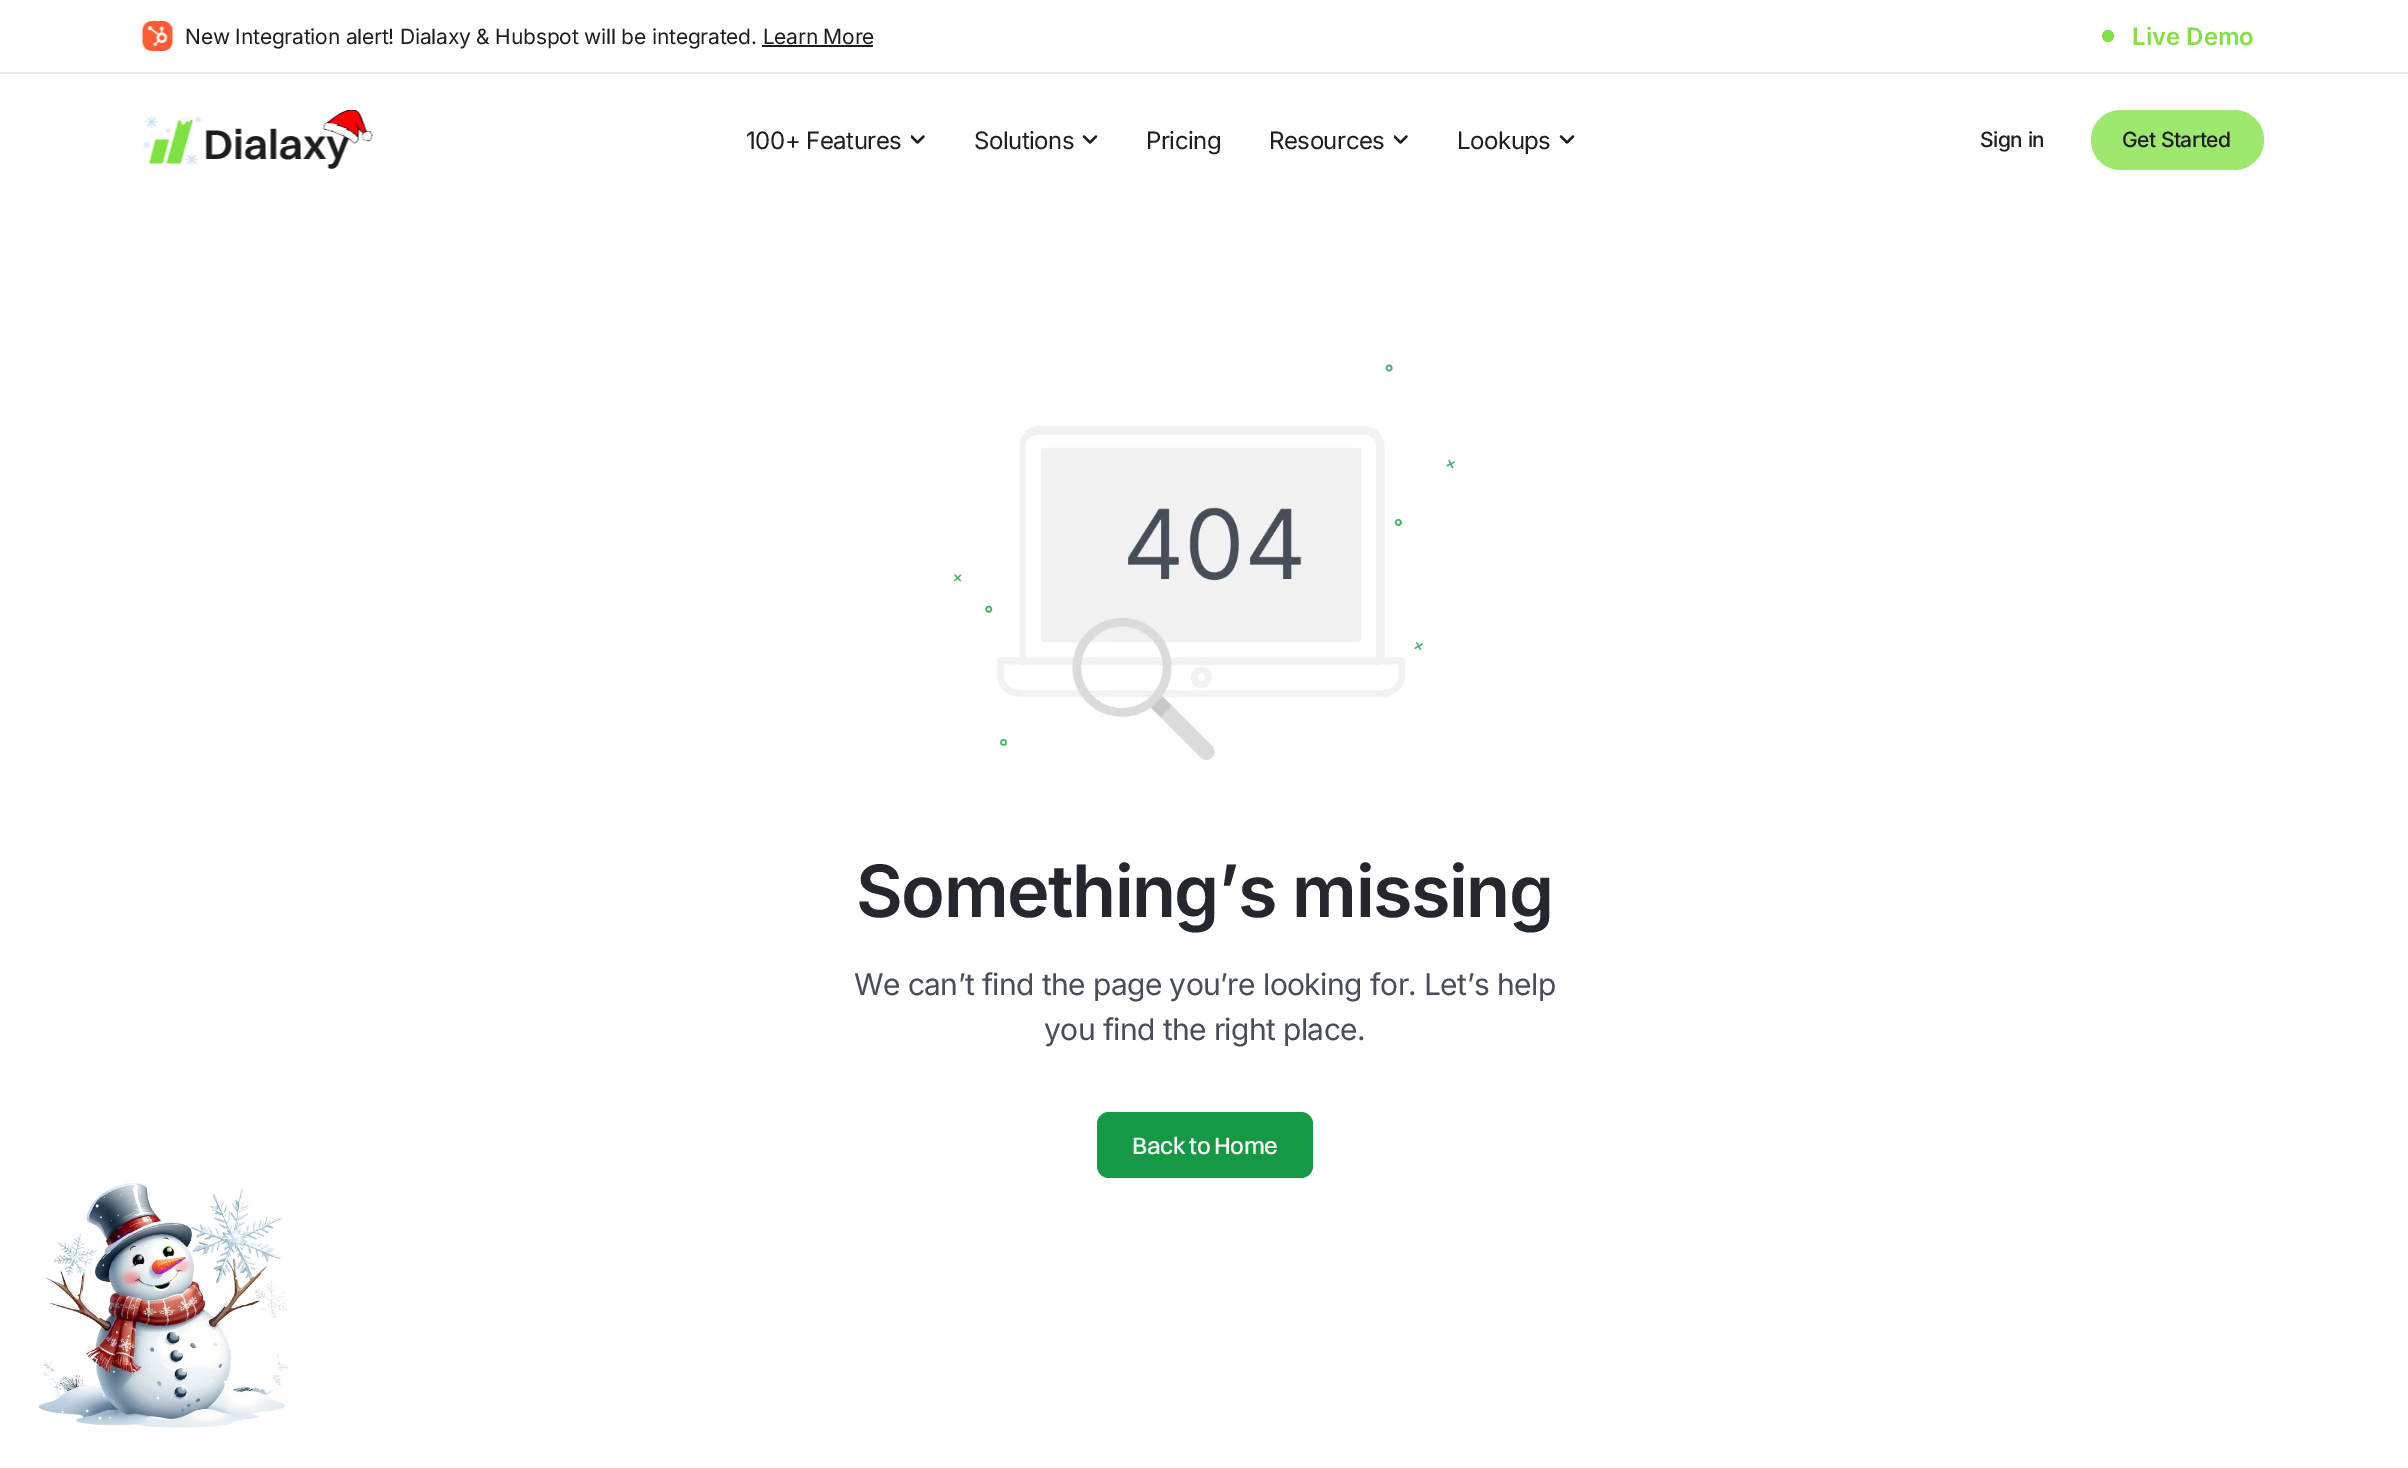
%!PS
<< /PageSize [2408 1468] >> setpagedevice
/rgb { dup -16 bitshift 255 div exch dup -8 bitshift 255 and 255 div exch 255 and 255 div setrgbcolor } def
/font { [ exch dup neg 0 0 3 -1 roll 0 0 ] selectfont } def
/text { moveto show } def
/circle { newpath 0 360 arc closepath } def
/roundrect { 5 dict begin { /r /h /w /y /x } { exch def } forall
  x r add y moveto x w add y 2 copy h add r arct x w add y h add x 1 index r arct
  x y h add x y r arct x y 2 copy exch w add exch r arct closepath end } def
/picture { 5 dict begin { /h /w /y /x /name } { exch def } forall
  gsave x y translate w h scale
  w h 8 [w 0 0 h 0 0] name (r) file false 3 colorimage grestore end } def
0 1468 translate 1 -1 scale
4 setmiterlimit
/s1 { /Inter-SemiBold 24 font 16#80E142 rgb } def
16#FFFFFF rgb
0 0 2408 1468 rectfill
16#E8E8E8 rgb
0 72 2408 2 rectfill
(pic1.raw) 142 21 31 30 picture
/Inter-Regular 21 font
16#1E1E1E rgb
185 44 moveto -0.2 0 (New Integration alert! Dialaxy & Hubspot will be integrated. Learn More) ashow
762 45 111 2 rectfill
16#80E142 rgb
2108 36 6 circle fill
s1
(Live Demo) 2132 45 text
(pic2.raw) 143 110 231 59 picture
/Inter-Regular 24 font
16#1E1E1E rgb
746 149 moveto -0.5 0 (100+ Features) ashow
gsave
911 122 15 36 rectclip
2.2 setlinewidth
1 setlinecap
1 setlinejoin
911.5 136.5 moveto 917.5 142.5 lineto 923.5 136.5 lineto stroke
grestore
974 149 moveto -0.5 0 (Solutions) ashow
2.2 setlinewidth
1 setlinecap
1 setlinejoin
1084 136.5 moveto 1090 142.5 lineto 1096 136.5 lineto stroke
1146 149 moveto -0.5 0 (Pricing) ashow
1269 149 moveto -0.5 0 (Resources) ashow
gsave
1394 122 15 36 rectclip
1394.5 136.5 moveto 1400.5 142.5 lineto 1406.5 136.5 lineto stroke
grestore
1457 149 moveto -0.5 0 (Lookups) ashow
1561 136.5 moveto 1567 142.5 lineto 1573 136.5 lineto stroke
/Inter-Medium 21 font
1980 147 moveto -0.5 0 (Sign in) ashow
16#9FE870 rgb
2091 110 173 60 30 roundrect fill
16#1E1E1E rgb
2122 147 moveto -0.5 0 (Get Started) ashow
(pic3.raw) 38 1183 251 245 picture
(pic4.raw) 954 364 501 396 picture
/Inter-SemiBold 72 font
16#24282E rgb
856 917 moveto -1.5 0 (Something’s missing) ashow
/Inter-Regular 30 font
16#474E5A rgb
854 995 moveto -0.6 0 (We can’t find the page you’re looking for. Let’s help) ashow
1044 1040 moveto -0.6 0 (you find the right place.) ashow
16#159946 rgb
1097 1112 216 66 12 roundrect fill
/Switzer-Medium 24 font
16#F5F5F5 rgb
1132 1154 moveto -0.5 0 (Back to Home) ashow
showpage
